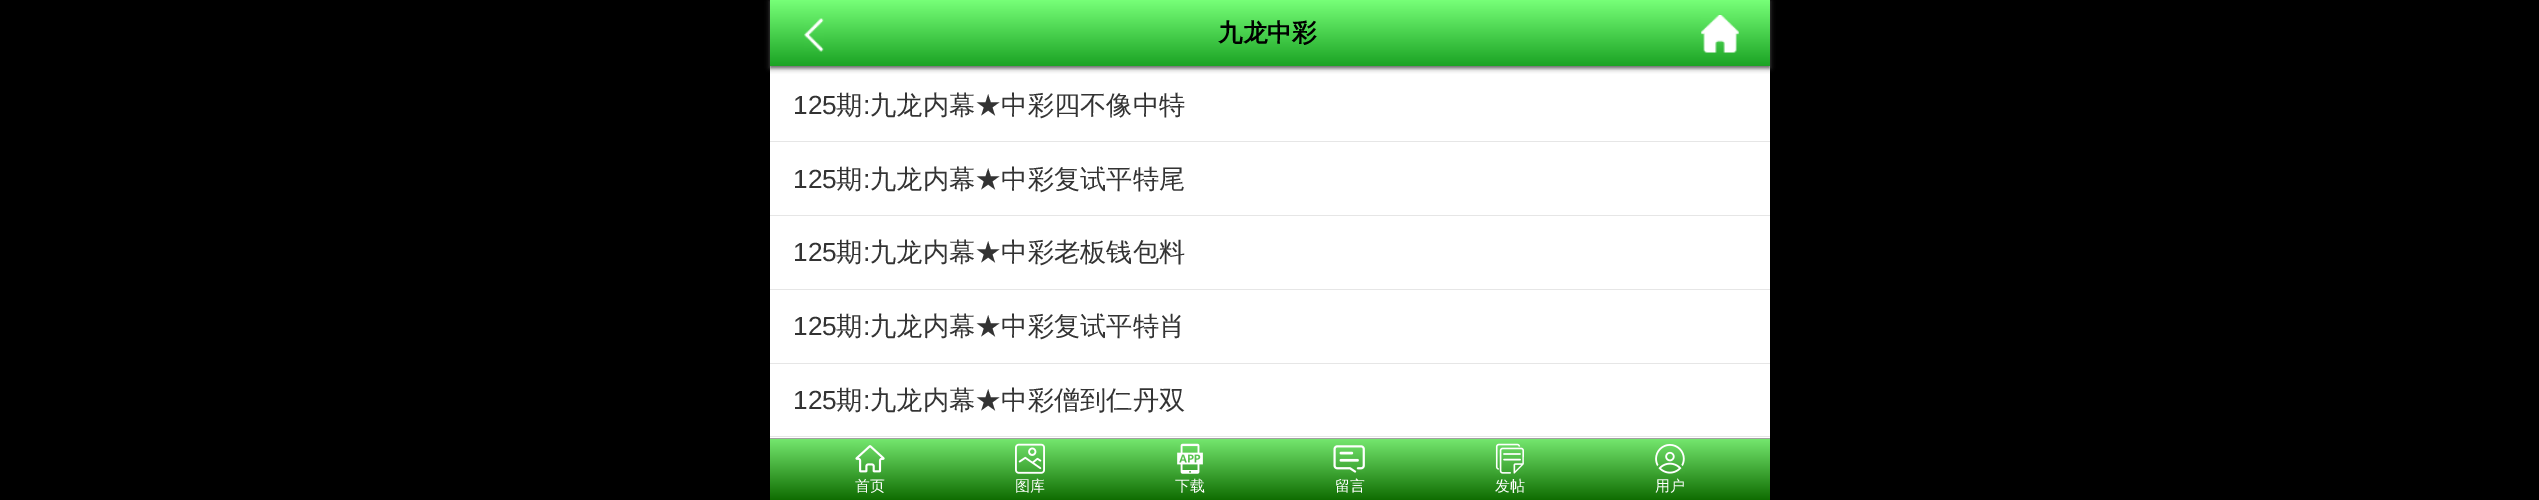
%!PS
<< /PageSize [2539 500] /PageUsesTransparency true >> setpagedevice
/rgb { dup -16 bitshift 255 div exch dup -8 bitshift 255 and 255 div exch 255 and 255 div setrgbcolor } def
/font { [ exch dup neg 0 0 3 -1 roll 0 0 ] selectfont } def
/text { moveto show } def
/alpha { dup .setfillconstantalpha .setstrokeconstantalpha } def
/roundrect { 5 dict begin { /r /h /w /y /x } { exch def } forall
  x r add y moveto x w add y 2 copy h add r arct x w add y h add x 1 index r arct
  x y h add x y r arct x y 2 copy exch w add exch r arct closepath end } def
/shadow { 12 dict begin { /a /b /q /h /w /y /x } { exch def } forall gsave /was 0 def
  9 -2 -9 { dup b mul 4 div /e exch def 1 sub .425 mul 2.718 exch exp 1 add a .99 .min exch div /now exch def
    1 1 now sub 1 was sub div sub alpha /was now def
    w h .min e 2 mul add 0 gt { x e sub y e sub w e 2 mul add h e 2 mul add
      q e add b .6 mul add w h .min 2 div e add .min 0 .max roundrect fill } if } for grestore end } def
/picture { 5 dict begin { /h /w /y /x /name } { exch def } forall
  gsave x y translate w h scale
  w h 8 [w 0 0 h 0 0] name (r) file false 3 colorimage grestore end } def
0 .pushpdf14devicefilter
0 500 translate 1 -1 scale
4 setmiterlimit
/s1 { /WenQuanYiZenHei-Bold 24.5 font 16#000000 rgb } def
/s2 { /LiberationSans-Regular 26.25 font 16#333333 rgb } def
/s3 { /WenQuanYiZenHei-Medium 26.25 font 16#333333 rgb } def
/s4 { /WenQuanYiZenHei-Medium 15 font 16#FFFFFF rgb } def
16#000000 rgb
0 0 2539 500 rectfill
16#FFFFFF rgb
770 66 1000 372 rectfill
16#4D4D4D rgb
770 1 1000 67 0 2.5 1 shadow
gsave 770 0 moveto 1770 0 lineto 1770 66 lineto 770 66 lineto closepath clip newpath
<< /ShadingType 2 /ColorSpace /DeviceRGB /Coords [1270 0 1270 66] /Extend [true true] /Function << /FunctionType 2 /Domain [0 1] /C0 [0.467 1 0.471] /C1 [0.106 0.639 0.141] /N 1 >> >> shfill grestore
(pic1.raw) 804 18 20 34 picture
s1
(九龙中彩) 1218 41 text
(pic2.raw) 1701 15 38 38 picture
16#E6E6E6 rgb
770 141 1000 1 rectfill
s2
(125) 793 114 text
s3
(期) 836 114 text
s2
(:) 863 114 text
s3
(九龙内幕★中彩四不像中特) 870 114 text
16#E6E6E6 rgb
770 215 1000 1 rectfill
s2
(125) 793 188 text
s3
(期) 836 188 text
s2
(:) 863 188 text
s3
(九龙内幕★中彩复试平特尾) 870 188 text
16#E6E6E6 rgb
770 289 1000 1 rectfill
s2
(125) 793 261 text
s3
(期) 836 261 text
s2
(:) 863 261 text
s3
(九龙内幕★中彩老板钱包料) 870 261 text
16#E6E6E6 rgb
770 363 1000 1 rectfill
s2
(125) 793 335 text
s3
(期) 836 335 text
s2
(:) 863 335 text
s3
(九龙内幕★中彩复试平特肖) 870 335 text
16#E6E6E6 rgb
770 436 1000 1 rectfill
s2
(125) 793 409 text
s3
(期) 836 409 text
s2
(:) 863 409 text
s3
(九龙内幕★中彩僧到仁丹双) 870 409 text
gsave 770 439 moveto 1770 439 lineto 1770 500 lineto 770 500 lineto closepath clip newpath
<< /ShadingType 2 /ColorSpace /DeviceRGB /Coords [1270 500 1270 439] /Extend [true true] /Function << /FunctionType 2 /Domain [0 1] /C0 [0.059 0.427 0.004] /C1 [0.455 0.902 0.431] /N 1 >> >> shfill grestore
16#9F9F9F rgb
770 438 1000 1 rectfill
(pic3.raw) 855 445 30 28 picture
s4
(首页) 855 491 text
(pic4.raw) 1015 443 30 31 picture
(图库) 1015 491 text
(pic5.raw) 1177 443 26 31 picture
(下载) 1175 491 text
(pic6.raw) 1333 445 32 28 picture
(留言) 1335 491 text
(pic7.raw) 1495 443 29 31 picture
(发帖) 1495 491 text
(pic8.raw) 1655 444 30 30 picture
(用户) 1655 491 text
.poppdf14devicefilter showpage
